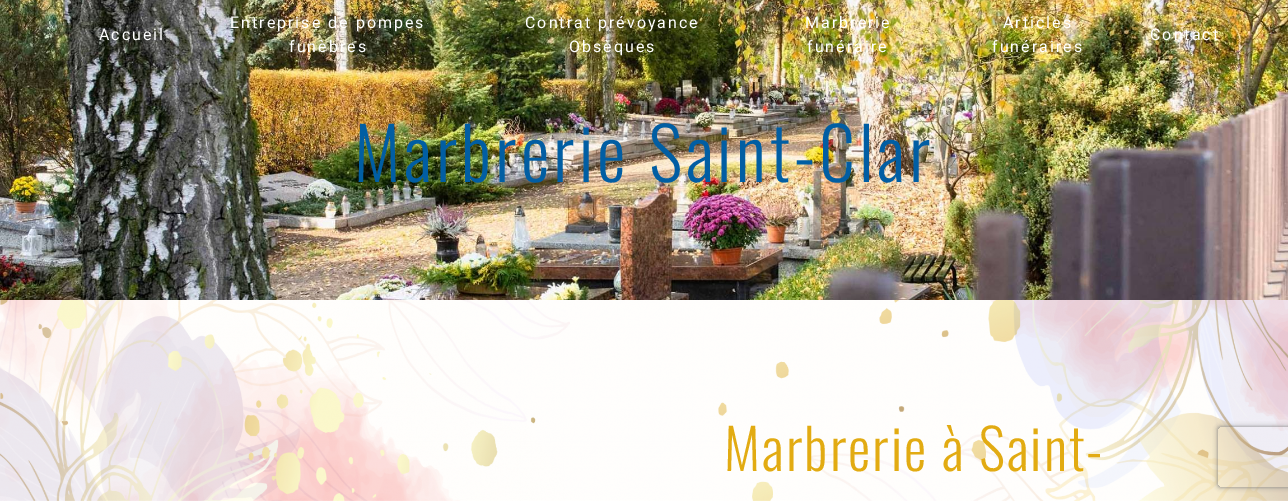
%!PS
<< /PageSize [1288 501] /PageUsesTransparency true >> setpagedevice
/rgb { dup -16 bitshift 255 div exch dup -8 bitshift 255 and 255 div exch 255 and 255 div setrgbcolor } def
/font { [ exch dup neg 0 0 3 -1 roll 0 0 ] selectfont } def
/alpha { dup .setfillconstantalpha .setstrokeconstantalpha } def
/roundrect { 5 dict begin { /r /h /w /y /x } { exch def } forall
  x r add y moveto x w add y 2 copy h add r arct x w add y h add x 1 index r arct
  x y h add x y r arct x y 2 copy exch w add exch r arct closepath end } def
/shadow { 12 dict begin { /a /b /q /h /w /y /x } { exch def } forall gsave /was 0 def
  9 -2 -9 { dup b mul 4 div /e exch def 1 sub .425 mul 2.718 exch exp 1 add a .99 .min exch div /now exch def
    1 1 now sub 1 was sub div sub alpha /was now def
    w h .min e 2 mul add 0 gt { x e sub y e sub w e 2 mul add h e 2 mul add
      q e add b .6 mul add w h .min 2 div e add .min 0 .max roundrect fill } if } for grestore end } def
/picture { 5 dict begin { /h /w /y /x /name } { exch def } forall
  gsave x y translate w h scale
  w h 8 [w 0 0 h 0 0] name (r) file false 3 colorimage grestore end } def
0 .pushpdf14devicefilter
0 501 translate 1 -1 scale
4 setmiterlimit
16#FFFFFF rgb
0 0 1288 501 rectfill
(pic1.raw) 0 300 1288 201 picture
(pic2.raw) 0 0 1288 300 picture
/Roboto-Regular 16 font
99 40 moveto 2 0 (Accueil) ashow
230 28 moveto 2 0 (Entreprise de pompes) ashow
289 52 moveto 2 0 (funèbres) ashow
525 28 moveto 2 0 (Contrat prévoyance) ashow
569 52 moveto 2 0 (Obsèques) ashow
805 28 moveto 2 0 (Marbrerie) ashow
807 52 moveto 2 0 (funéraire) ashow
1003 28 moveto 2 0 (Articles) ashow
992 52 moveto 2 0 (funéraires) ashow
1150 40 moveto 2 0 (Contact) ashow
/Oswald-Light 72 font
16#015EA3 rgb
354 182 moveto 4 0 (Marbrerie Saint-Clar) ashow
/Oswald-Light 56 font
16#E2AB12 rgb
724 471 moveto 2 0 (Marbrerie à Saint-) ashow
gsave
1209 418 moveto 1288 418 lineto 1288 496 lineto 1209 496 lineto closepath 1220 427 moveto 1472 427 lineto 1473 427 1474 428 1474 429 curveto 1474 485 lineto 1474 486 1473 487 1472 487 curveto 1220 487 lineto 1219 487 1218 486 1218 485 curveto 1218 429 lineto 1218 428 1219 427 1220 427 curveto closepath eoclip newpath
16#808080 rgb
1218 427 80 60 2 2.5 1 shadow
grestore
.poppdf14devicefilter showpage
